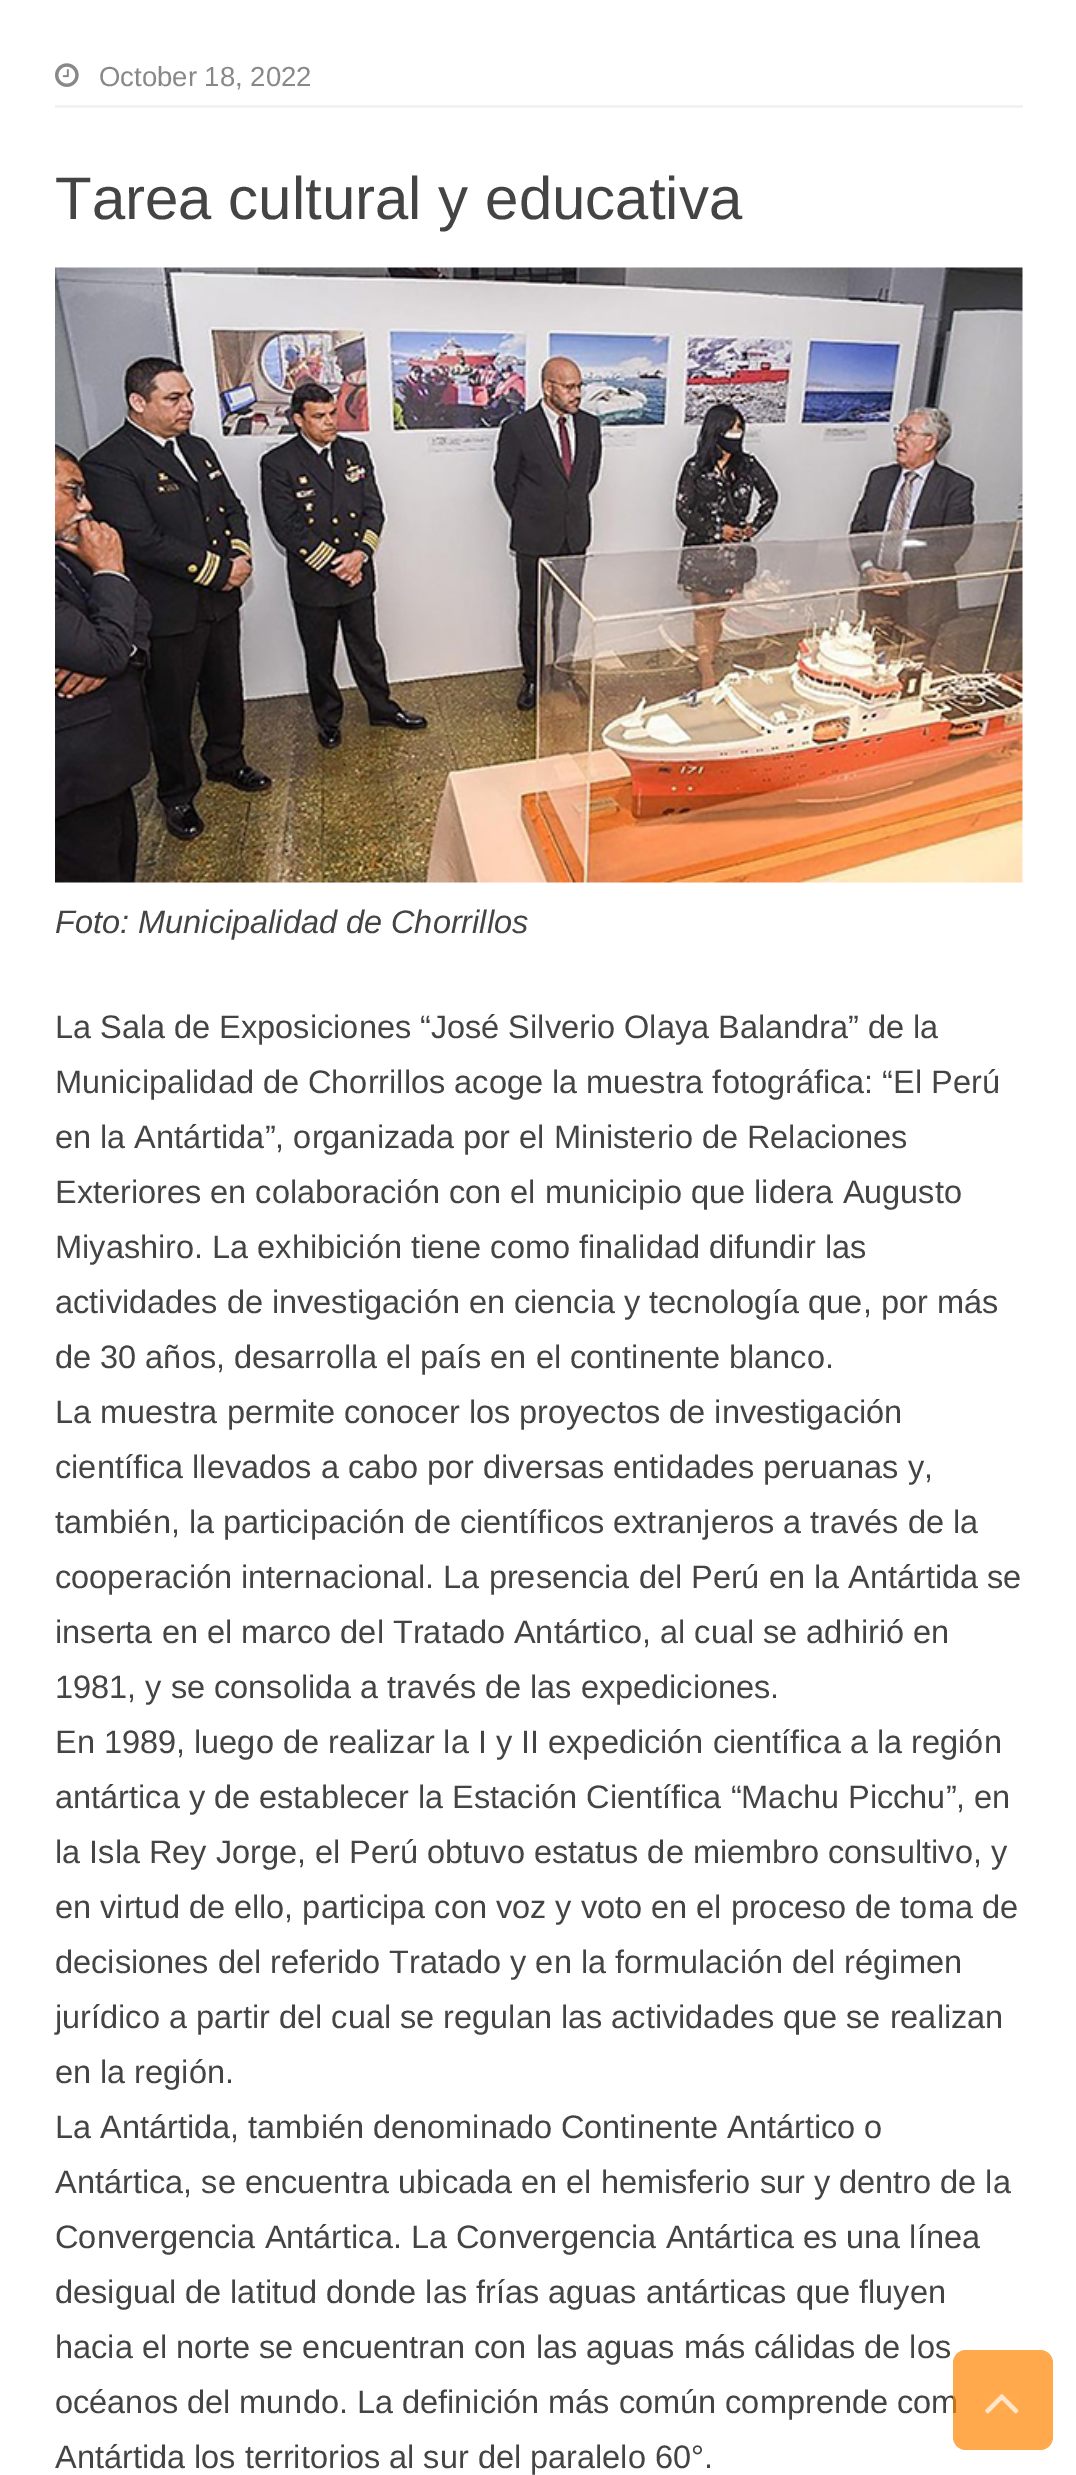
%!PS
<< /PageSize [1076 2475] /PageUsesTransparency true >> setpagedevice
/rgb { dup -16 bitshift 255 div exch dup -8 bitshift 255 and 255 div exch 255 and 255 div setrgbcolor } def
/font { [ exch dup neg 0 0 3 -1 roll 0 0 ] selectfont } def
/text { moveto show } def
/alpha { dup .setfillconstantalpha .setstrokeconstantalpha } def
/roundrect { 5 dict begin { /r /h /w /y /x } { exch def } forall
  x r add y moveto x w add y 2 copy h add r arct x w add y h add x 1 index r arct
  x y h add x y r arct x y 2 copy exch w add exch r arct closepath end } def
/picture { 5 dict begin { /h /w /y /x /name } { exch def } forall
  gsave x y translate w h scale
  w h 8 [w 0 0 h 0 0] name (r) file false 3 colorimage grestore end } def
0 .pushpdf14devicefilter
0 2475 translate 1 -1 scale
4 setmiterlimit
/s1 { /LiberationSans-Regular 27.5 font 16#888888 rgb } def
/s2 { /LiberationSans-Regular 60 font 16#444444 rgb } def
/s3 { /LiberationSans-Italic 32.5 font 16#444444 rgb } def
/s4 { /LiberationSans-Regular 32.5 font 16#444444 rgb } def
16#FFFFFF rgb
0 0 1076 2475 rectfill
16#F2F2F2 rgb
55 105 968 3 rectfill
(pic1.raw) 55 63 24 24 picture
s1
(October 18, 2022) 99 86 text
s2
(Tarea cultural y educativa) 55 219 text
(pic2.raw) 55 267 968 616 picture
s3
(Foto: Municipalidad de Chorrillos) 55 933 text
s4
(La Sala de Exposiciones “José Silverio Olaya Balandra” de la) 55 1038 text
(Municipalidad de Chorrillos acoge la muestra fotográfica: “El Perú) 55 1093 text
(en la Antártida”, organizada por el Ministerio de Relaciones) 55 1148 text
(Exteriores en colaboración con el municipio que lidera Augusto) 55 1203 text
(Miyashiro. La exhibición tiene como finalidad difundir las) 55 1258 text
(actividades de investigación en ciencia y tecnología que, por más) 55 1313 text
(de 30 años, desarrolla el país en el continente blanco.) 55 1368 text
(La muestra permite conocer los proyectos de investigación) 55 1423 text
(científica llevados a cabo por diversas entidades peruanas y,) 55 1478 text
(también, la participación de científicos extranjeros a través de la) 55 1533 text
(cooperación internacional. La presencia del Perú en la Antártida se) 55 1588 text
(inserta en el marco del Tratado Antártico, al cual se adhirió en) 55 1643 text
(1981, y se consolida a través de las expediciones.) 55 1698 text
(En 1989, luego de realizar la I y II expedición científica a la región) 55 1753 text
(antártica y de establecer la Estación Científica “Machu Picchu”, en) 55 1808 text
(la Isla Rey Jorge, el Perú obtuvo estatus de miembro consultivo, y) 55 1863 text
(en virtud de ello, participa con voz y voto en el proceso de toma de) 55 1918 text
(decisiones del referido Tratado y en la formulación del régimen) 55 1973 text
(jurídico a partir del cual se regulan las actividades que se realizan) 55 2028 text
(en la región.) 55 2083 text
(La Antártida, también denominado Continente Antártico o) 55 2138 text
(Antártica, se encuentra ubicada en el hemisferio sur y dentro de la) 55 2193 text
(Convergencia Antártica. La Convergencia Antártica es una línea) 55 2248 text
(desigual de latitud donde las frías aguas antárticas que fluyen) 55 2303 text
(hacia el norte se encuentran con las aguas más cálidas de los) 55 2358 text
(océanos del mundo. La definición más común comprende com) 55 2413 text
(Antártida los territorios al sur del paralelo 60°.) 55 2468 text
0.7 alpha
16#FF8500 rgb
953 2350 100 100 13 roundrect fill
1 alpha
(pic3.raw) 985 2394 34 20 picture
.poppdf14devicefilter showpage
